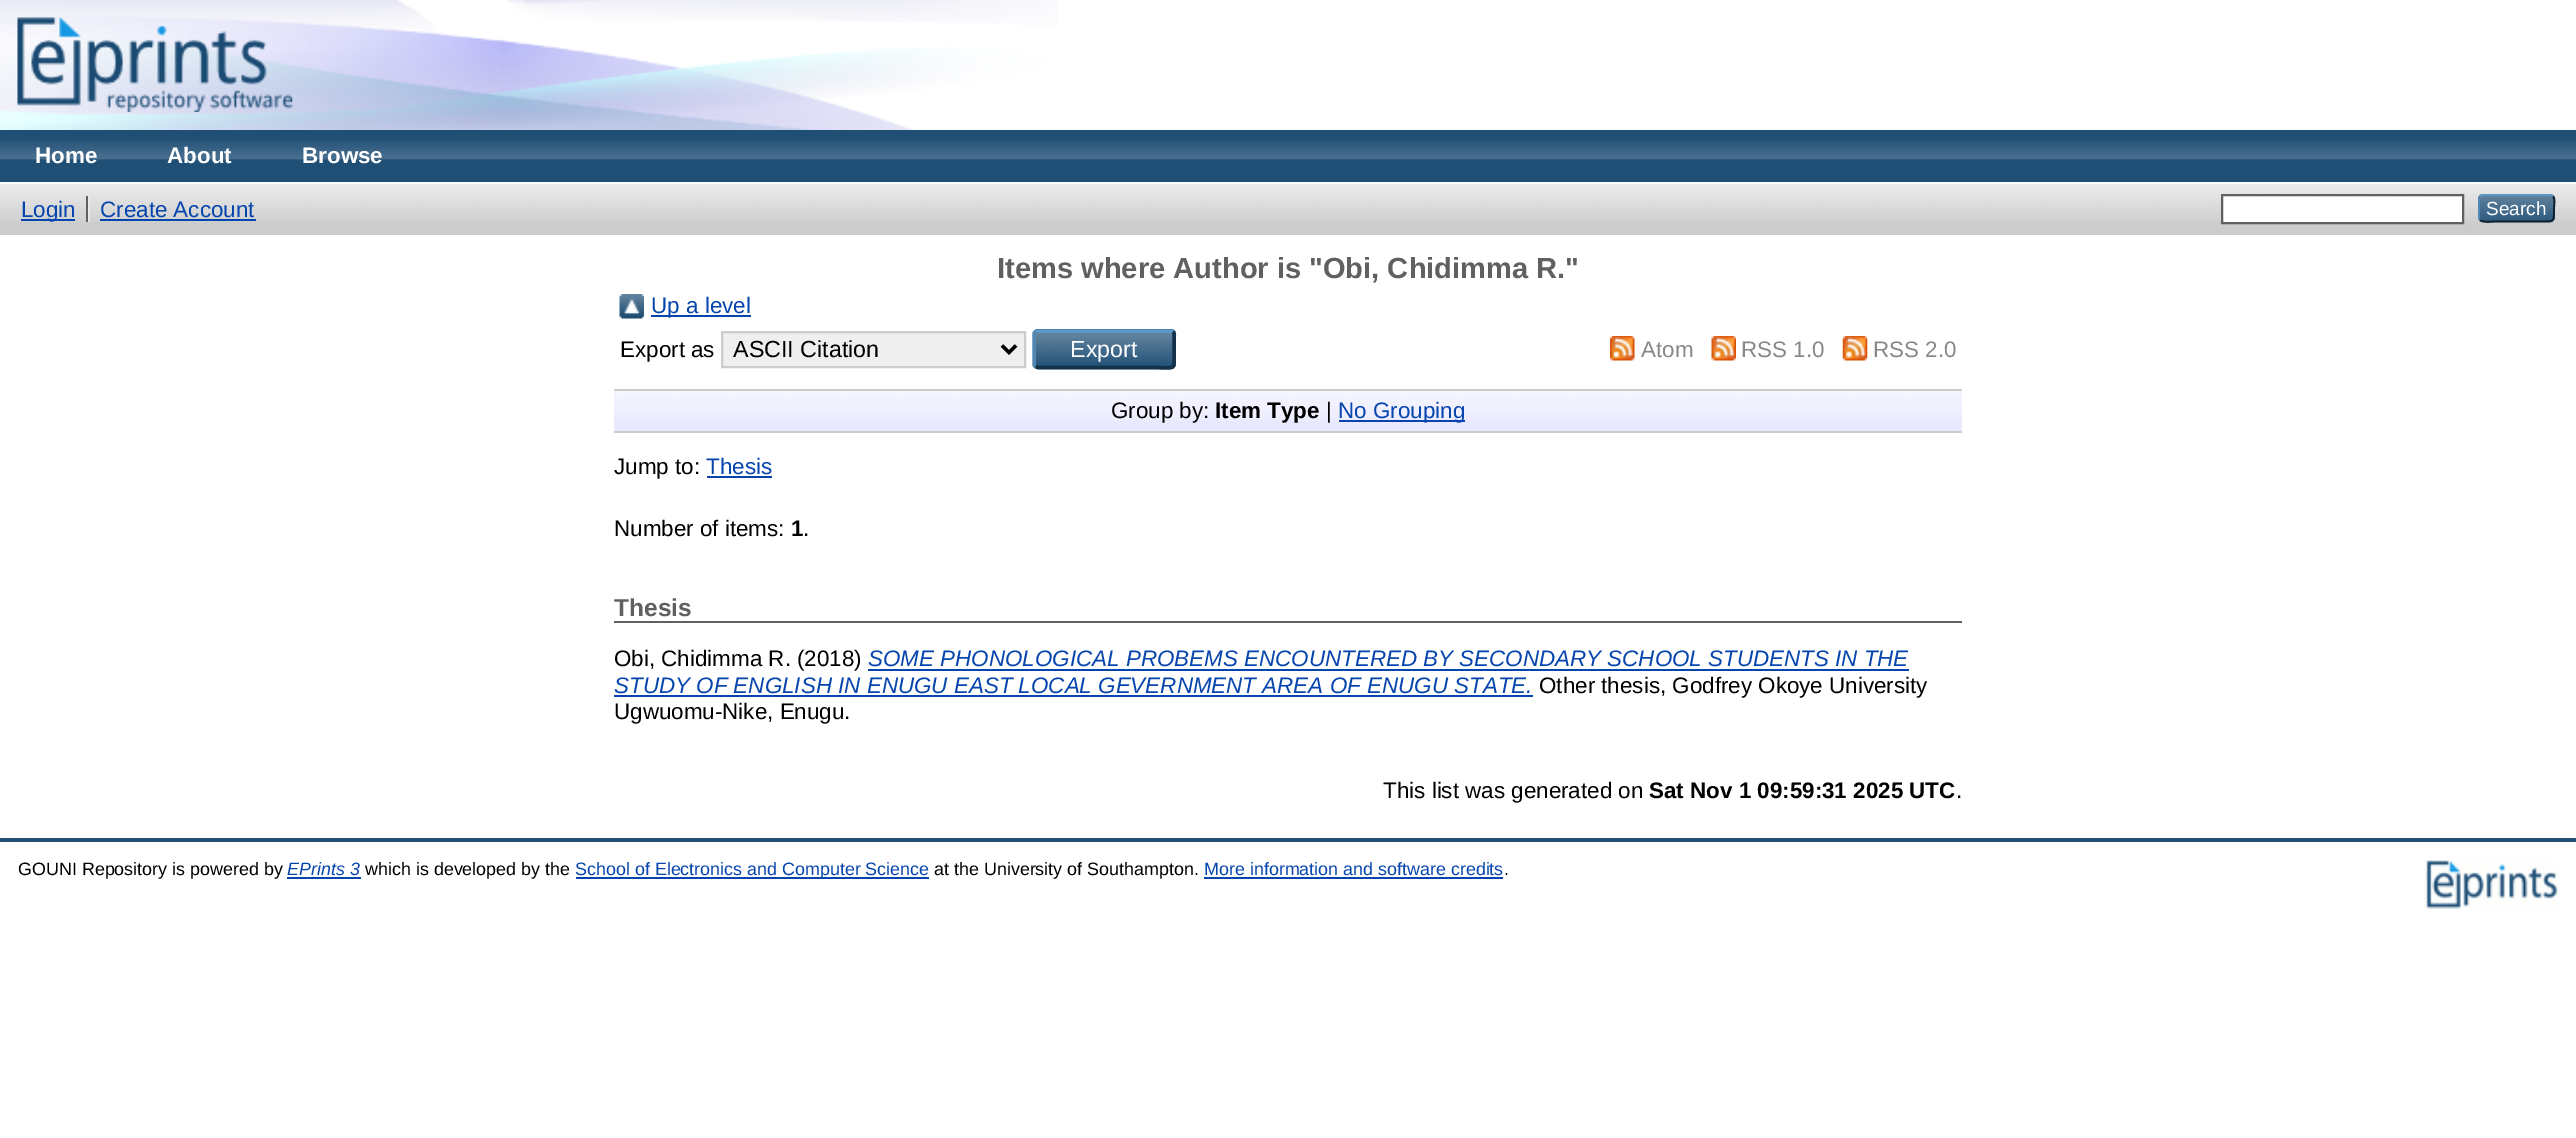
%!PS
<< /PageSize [2576 1138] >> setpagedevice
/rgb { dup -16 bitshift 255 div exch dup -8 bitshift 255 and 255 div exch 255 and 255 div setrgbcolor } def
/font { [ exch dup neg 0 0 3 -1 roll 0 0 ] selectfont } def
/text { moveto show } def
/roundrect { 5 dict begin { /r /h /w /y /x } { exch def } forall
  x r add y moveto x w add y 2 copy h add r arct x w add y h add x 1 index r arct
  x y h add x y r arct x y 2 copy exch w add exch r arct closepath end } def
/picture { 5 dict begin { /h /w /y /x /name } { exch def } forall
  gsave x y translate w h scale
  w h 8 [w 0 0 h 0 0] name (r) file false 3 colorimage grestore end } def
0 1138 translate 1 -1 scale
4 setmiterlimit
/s1 { /LiberationSans-Bold 22.4 font 16#FFFFFF rgb } def
/s2 { /LiberationSans-Regular 22.4 font 16#0645AD rgb } def
/s3 { /LiberationSans-Regular 19 font 16#FFFFFF rgb } def
/s4 { /LiberationSans-Bold 29.1 font 16#606060 rgb } def
/s5 { /LiberationSans-Regular 22.4 font 16#000000 rgb } def
/s6 { /LiberationSans-Regular 23.25 font 16#000000 rgb } def
/s7 { /LiberationSans-Regular 23.25 font 16#FFFFFF rgb } def
/s8 { /LiberationSans-Regular 22.4 font 16#888888 rgb } def
/s9 { /LiberationSans-Bold 22.4 font 16#000000 rgb } def
/s10 { /LiberationSans-Bold 24.5 font 16#606060 rgb } def
/s11 { /LiberationSans-Italic 22.4 font 16#0645AD rgb } def
/s12 { /LiberationSans-Regular 17.9 font 16#000000 rgb } def
/s13 { /LiberationSans-Italic 17.9 font 16#0645AD rgb } def
/s14 { /LiberationSans-Regular 17.9 font 16#0645AD rgb } def
16#FFFFFF rgb
0 0 2576 1138 rectfill
(pic1.raw) 0 0 1058 130 picture
(pic2.raw) 17 17 276 95 picture
16#204F76 rgb
0 130 2576 52 rectfill
(pic3.raw) 0 140 2576 20 picture
s1
(Home) 35 163 text
(About) 167 163 text
(Browse) 302 163 text
16#CCCCCC rgb
0 184 2576 51 rectfill
(pic4.raw) 0 184 2576 38 picture
16#0645AD rgb
21 219 54 2 rectfill
s2
(Login) 21 217 text
16#606060 rgb
86 196 2 26 rectfill
s2
(Create Account) 100 217 text
16#E8E8E8 rgb
88 196 2 26 rectfill
16#0645AD rgb
100 219 156 2 rectfill
16#FFFFFF rgb
2222 195 moveto 2463 195 lineto 2463 223 lineto 2222 223 lineto closepath gsave fill grestore
16#606060 rgb
2 setlinewidth
stroke
16#1F4F76 rgb
2478 194 77 28 5 roundrect fill
(pic5.raw) 2478 194 77 28 picture
16#5B97C7 rgb
1.8 setlinewidth
2480 196.5 moveto 2483 195 lineto 2550 195 lineto 2553 196.5 lineto stroke
16#0D2131 rgb
2553 196.5 moveto 2555.5 199 2554 205 2554 208 curveto 2554 223.5 2554.5 221.5 2538.5 221.5 curveto 2494.5 221.5 lineto 2493.5 221.5 2483 223 2480 220 curveto stroke
16#5287B3 rgb
2480 220 moveto 2479.5 219.5 2479 218 2479 217 curveto 2479 199.5 lineto 2479 198.5 2479.5 197 2480 196.5 curveto stroke
s3
(Search) 2486 215 text
s4
(Items where Author is "Obi, Chidimma R.) 997 278 text
(") 1565 278 text
(pic6.raw) 619 294 25 25 picture
16#0645AD rgb
651 315 100 2 rectfill
s2
(Up a level) 651 313 text
s5
(Export as) 620 357 text
16#EFEFEF rgb
722 332 moveto 1025 332 lineto 1025 367 lineto 722 367 lineto closepath gsave fill grestore
16#CCCCCC rgb
2 setlinewidth
stroke
16#000000 rgb
3.5 setlinewidth
1002 345.5 moveto 1009 352.5 lineto 1016 345.5 lineto stroke
s6
(ASCII Citation) 733 357 text
16#1F4F76 rgb
1033 329 143 40 5 roundrect fill
(pic7.raw) 1035 332 141 33 picture
16#5B97C7 rgb
1035.5 332 moveto 1036 331 1037 331 1038 331 curveto 1171 331 lineto 1171.5 331 1172.5 331 1173 332 curveto stroke
16#13324A rgb
1173 332 moveto 1175 333.5 1174 337.5 1174 339 curveto 1174 349 lineto 1174 373 1177.5 367.5 1148.5 367.5 curveto 1038 367.5 lineto 1035.5 366.5 lineto stroke
16#5287B3 rgb
1035.5 366.5 moveto 1034.5 366 1034 365 1034 364 curveto 1034 334 lineto 1034 333.5 1034.5 332.5 1035.5 332 curveto stroke
s7
(Export) 1070 357 text
(pic8.raw) 1610 336 25 25 picture
s8
(Atom) 1641 357 text
(pic9.raw) 1711 336 25 25 picture
(RSS 1.0) 1741 357 text
(pic10.raw) 1842 336 26 25 picture
(RSS 2.0) 1873 357 text
16#E8E8FF rgb
614 391 1348 40 rectfill
(pic11.raw) 614 391 1348 30 picture
16#CCCCCC rgb
614 389 1348 2 rectfill
614 431 1348 2 rectfill
s5
(Group by:) 1111 418 text
s9
(Item Type) 1215 418 text
s5
(|) 1326 418 text
16#0645AD rgb
1339 420 126 2 rectfill
(No Grouping) 1338 418 text
s5
(Jump to:) 614 474 text
s2
(Thesis) 706 474 text
707 476 65 2 rectfill
s5
(Number of items:) 614 536 text
s9
(1) 791 536 text
s5
(.) 803 536 text
16#606060 rgb
614 621 1348 2 rectfill
s10
(Thesis) 614 616 text
s5
(Obi, Chidimma R. \(2018\)) 614 666 text
s11
(SOME PHONOLOGICAL PROBEMS ENCOUNTERED BY SECONDARY SCHOOL STUDENTS IN THE) 868 666 text
868 669 1041 2 rectfill
(STUDY OF ENGLISH IN ENUGU EAST LOCAL GEVERNMENT AREA OF ENUGU STATE.) 614 693 text
614 695 919 2 rectfill
s5
(Other thesis, Godfrey Okoye University) 1539 693 text
(Ugwuomu-Nike, Enugu.) 614 719 text
(This list was generated on) 1383 798 text
s9
(Sat Nov 1 09:59:31 2025 UTC) 1649 798 text
s5
(.) 1956 798 text
16#204F76 rgb
0 838 2576 4 rectfill
s12
(GOUNI Repository is powered by) 18 875 text
s13
(EPrints 3) 287 875 text
287 877 74 2 rectfill
s12
(which is developed by the) 365 875 text
16#0645AD rgb
576 877 353 2 rectfill
(School of Electronics and Computer Science) 575 875 text
s12
(at the University of Southampton.) 934 875 text
s14
(More information and software credits) 1204 875 text
1204 877 299 2 rectfill
s12
(.) 1504 875 text
(pic12.raw) 2424 860 134 50 picture
showpage
